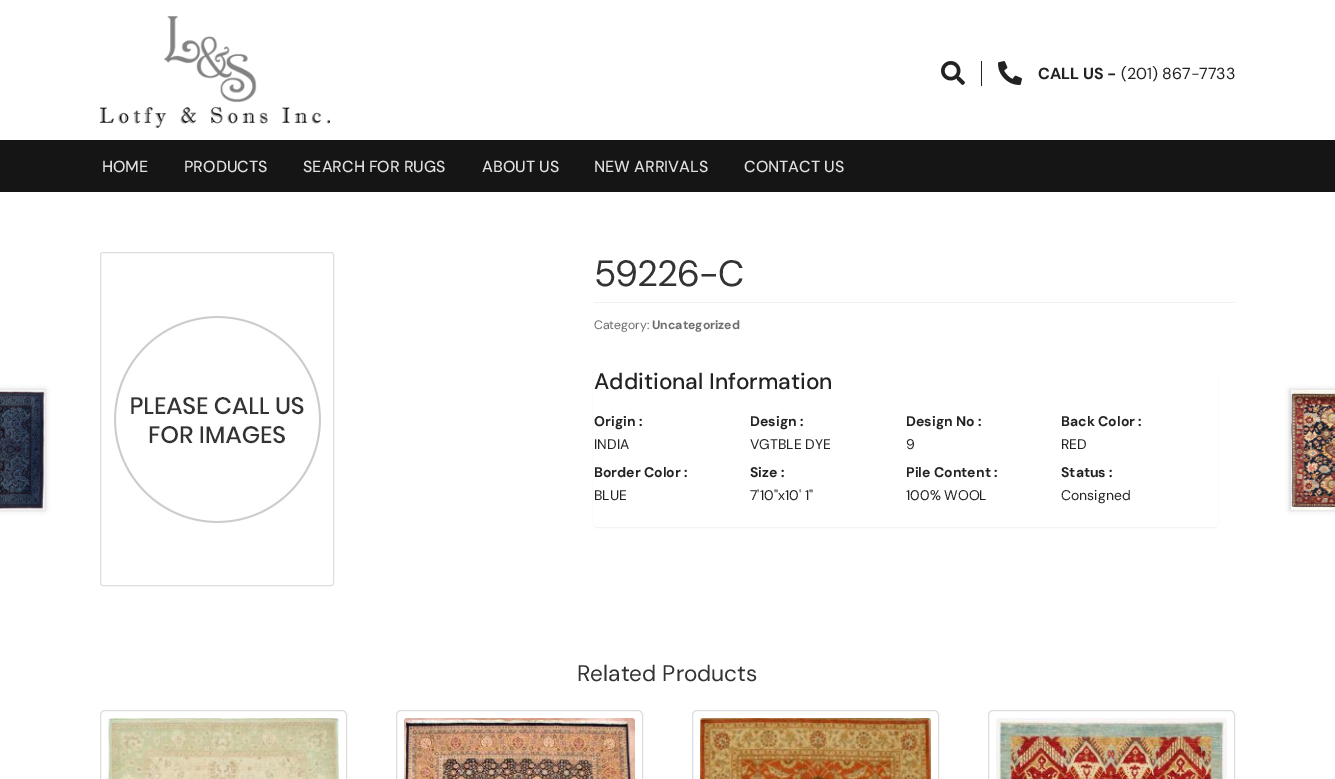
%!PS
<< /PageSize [1335 779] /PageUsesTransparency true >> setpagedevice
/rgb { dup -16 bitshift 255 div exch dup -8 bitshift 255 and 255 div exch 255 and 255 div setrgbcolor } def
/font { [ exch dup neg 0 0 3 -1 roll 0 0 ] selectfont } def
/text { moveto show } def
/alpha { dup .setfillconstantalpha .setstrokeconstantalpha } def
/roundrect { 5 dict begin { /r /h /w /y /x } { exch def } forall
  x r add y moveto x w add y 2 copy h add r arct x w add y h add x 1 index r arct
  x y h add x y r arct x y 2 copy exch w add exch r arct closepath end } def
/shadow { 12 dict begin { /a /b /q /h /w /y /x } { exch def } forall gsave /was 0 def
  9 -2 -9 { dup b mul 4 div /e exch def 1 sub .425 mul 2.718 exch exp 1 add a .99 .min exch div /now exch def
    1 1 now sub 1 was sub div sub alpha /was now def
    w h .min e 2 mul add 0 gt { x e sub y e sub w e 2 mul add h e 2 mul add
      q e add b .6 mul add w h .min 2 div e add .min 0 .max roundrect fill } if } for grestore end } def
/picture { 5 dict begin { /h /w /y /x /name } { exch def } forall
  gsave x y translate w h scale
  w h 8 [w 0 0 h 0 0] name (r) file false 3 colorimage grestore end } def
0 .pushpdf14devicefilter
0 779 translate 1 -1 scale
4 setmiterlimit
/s1 { /DMSans-Bold 16 font 16#222222 rgb } def
/s2 { /DMSans-Regular 16 font 16#222222 rgb } def
/s3 { /DMSans-Medium 16 font 16#DFDFDF rgb } def
/s4 { /DMSans-Regular 12.25 font 16#6D6D6D rgb } def
/s5 { /DMSans-Bold 12.25 font 16#6D6D6D rgb } def
/s6 { /DMSans-Medium 22.6 font 16#222222 rgb } def
/s7 { /DMSans-Bold 14 font 16#222222 rgb } def
/s8 { /DMSans-Regular 14 font 16#222222 rgb } def
/s9 { /DMSans-Regular 22.6 font 16#333333 rgb } def
16#FFFFFF rgb
0 0 1335 779 rectfill
(pic1.raw) 100 16 230 112 picture
(pic2.raw) 941 61 24 24 picture
16#222222 rgb
981 61 1 25 rectfill
(pic3.raw) 998 61 24 24 picture
s1
(CALL US -) 1038 79 text
s2
(\(201\) 867-7733) 1121 79 text
16#151515 rgb
0 140 1335 52 rectfill
s3
(HOME) 102 172 text
(PRODUCTS) 184 172 text
(SEARCH FOR RUGS) 303 172 text
(ABOUT US) 482 172 text
(NEW ARRIVALS) 594 172 text
(CONTACT US) 744 172 text
16#DDDDDD rgb
100.5 252.5 233 333 2.5 roundrect stroke
(pic4.raw) 114 316 207 207 picture
/DMSans-Regular 36.5 font
16#333333 rgb
594 286 moveto -1 0 (59226-C) ashow
16#F2F2F2 rgb
594 302 641 1 rectfill
s4
(Category:) 594 329 text
s5
(Uncategorized) 652 329 text
16#000000 rgb
593 368 625 160 4 0.5 0.05 shadow
16#FFFFFF rgb
593 367 625 160 4 roundrect fill
s6
(Additional Information) 594 389 text
s7
(Origin :) 594 426 text
s8
(INDIA) 594 449 text
s7
(Design :) 750 426 text
s8
(VGTBLE DYE) 750 449 text
s7
(Design No :) 906 426 text
s8
(9) 906 449 text
s7
(Back Color :) 1061 426 text
s8
(RED) 1061 449 text
s7
(Border Color :) 594 477 text
s8
(BLUE) 594 500 text
s7
(Size :) 750 477 text
s8
(7'10"x10' 1") 750 500 text
s7
(Pile Content :) 906 477 text
s8
(100% WOOL) 906 500 text
s7
(Status :) 1061 477 text
s8
(Consigned) 1061 500 text
16#000000 rgb
-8 390 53 120 0 2.5 0.2 shadow
(pic5.raw) 0 390 45 120 picture
1290 390 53 120 0 2.5 0.2 shadow
(pic6.raw) 1291 390 44 120 picture
s9
(Related Products) 577 681 text
16#DDDDDD rgb
100.5 710.5 246 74 4.5 roundrect stroke
(pic7.raw) 108 718 231 61 picture
396.5 710.5 246 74 4.5 roundrect stroke
(pic8.raw) 404 718 231 61 picture
692.5 710.5 246 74 4.5 roundrect stroke
(pic9.raw) 700 718 231 61 picture
988.5 710.5 246 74 4.5 roundrect stroke
(pic10.raw) 996 718 231 61 picture
.poppdf14devicefilter showpage
